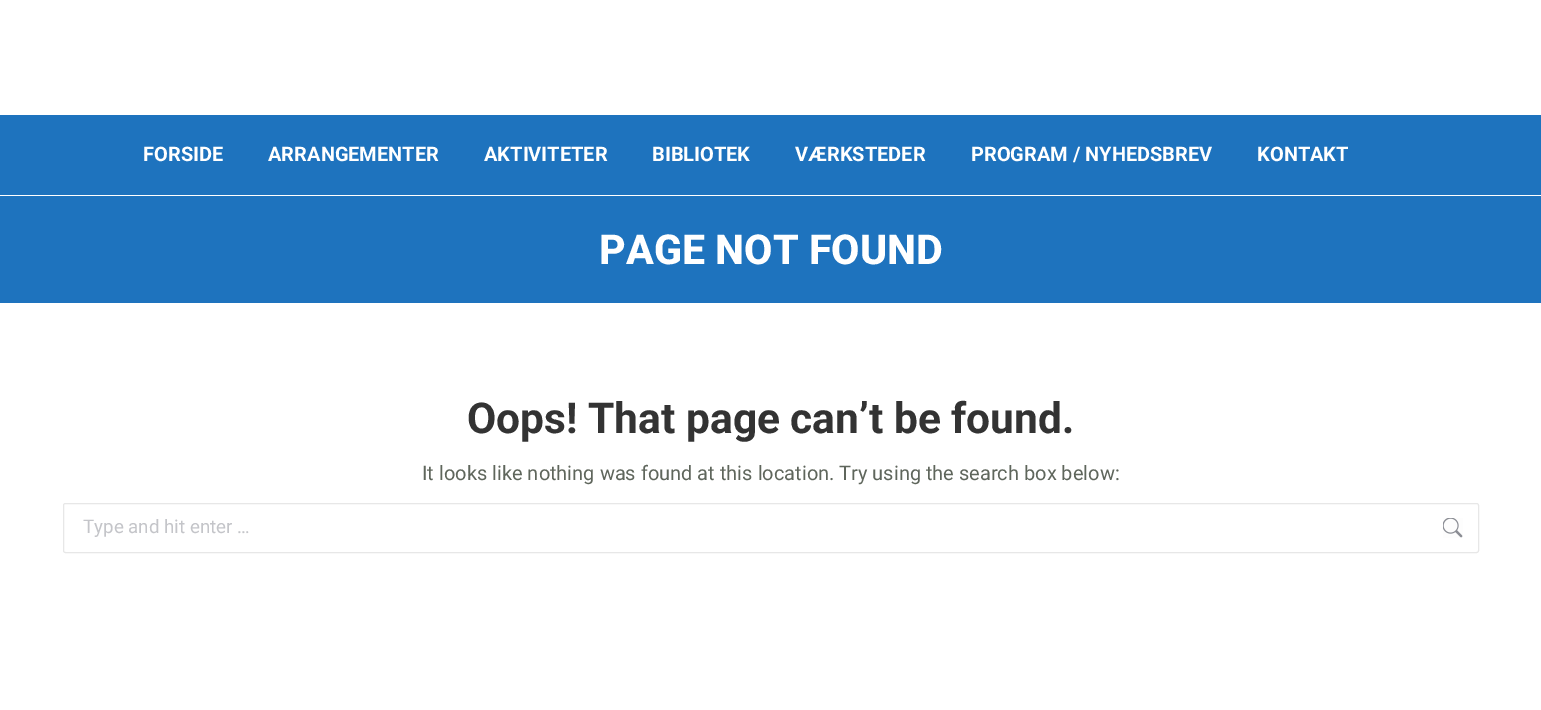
%!PS
<< /PageSize [1541 710] >> setpagedevice
/rgb { dup -16 bitshift 255 div exch dup -8 bitshift 255 and 255 div exch 255 and 255 div setrgbcolor } def
/font { [ exch dup neg 0 0 3 -1 roll 0 0 ] selectfont } def
/text { moveto show } def
/roundrect { 5 dict begin { /r /h /w /y /x } { exch def } forall
  x r add y moveto x w add y 2 copy h add r arct x w add y h add x 1 index r arct
  x y h add x y r arct x y 2 copy exch w add exch r arct closepath end } def
/picture { 5 dict begin { /h /w /y /x /name } { exch def } forall
  gsave x y translate w h scale
  w h 8 [w 0 0 h 0 0] name (r) file false 3 colorimage grestore end } def
0 710 translate 1 -1 scale
4 setmiterlimit
/s1 { /Roboto-Bold 20 font 16#FFFFFF rgb } def
/s2 { /Roboto-ExtraBold 41.25 font 16#FFFFFF rgb } def
/s3 { /Roboto-Bold 42.5 font 16#333333 rgb } def
/s4 { /Roboto-Regular 20 font 16#5F665C rgb } def
/s5 { /Roboto-Regular 18.75 font 16#C4C5C9 rgb } def
16#FFFFFF rgb
0 0 1541 710 rectfill
16#1E73BE rgb
0 115 1541 80 rectfill
s1
(FORSIDE) 143 161 text
(ARRANGEMENTER) 268 161 text
(AKTIVITETER) 484 161 text
(BIBLIOTEK) 652 161 text
(VÆRKSTEDER) 795 161 text
(PROGRAM / NYHEDSBREV) 971 161 text
(KONTAKT) 1257 161 text
16#1E73BE rgb
0 196 1541 107 rectfill
s2
(PAGE NOT FOUND) 599 264 text
s3
(Oops! That page can’t be found.) 467 433 text
s4
(It looks like nothing was found at this location. Try using the search box below:) 422 480 text
16#E7E7E7 rgb
63.5 503.5 1415 49 2 roundrect stroke
s5
(Type and hit enter …) 83 533 text
(pic1.raw) 1443 518 20 20 picture
showpage
